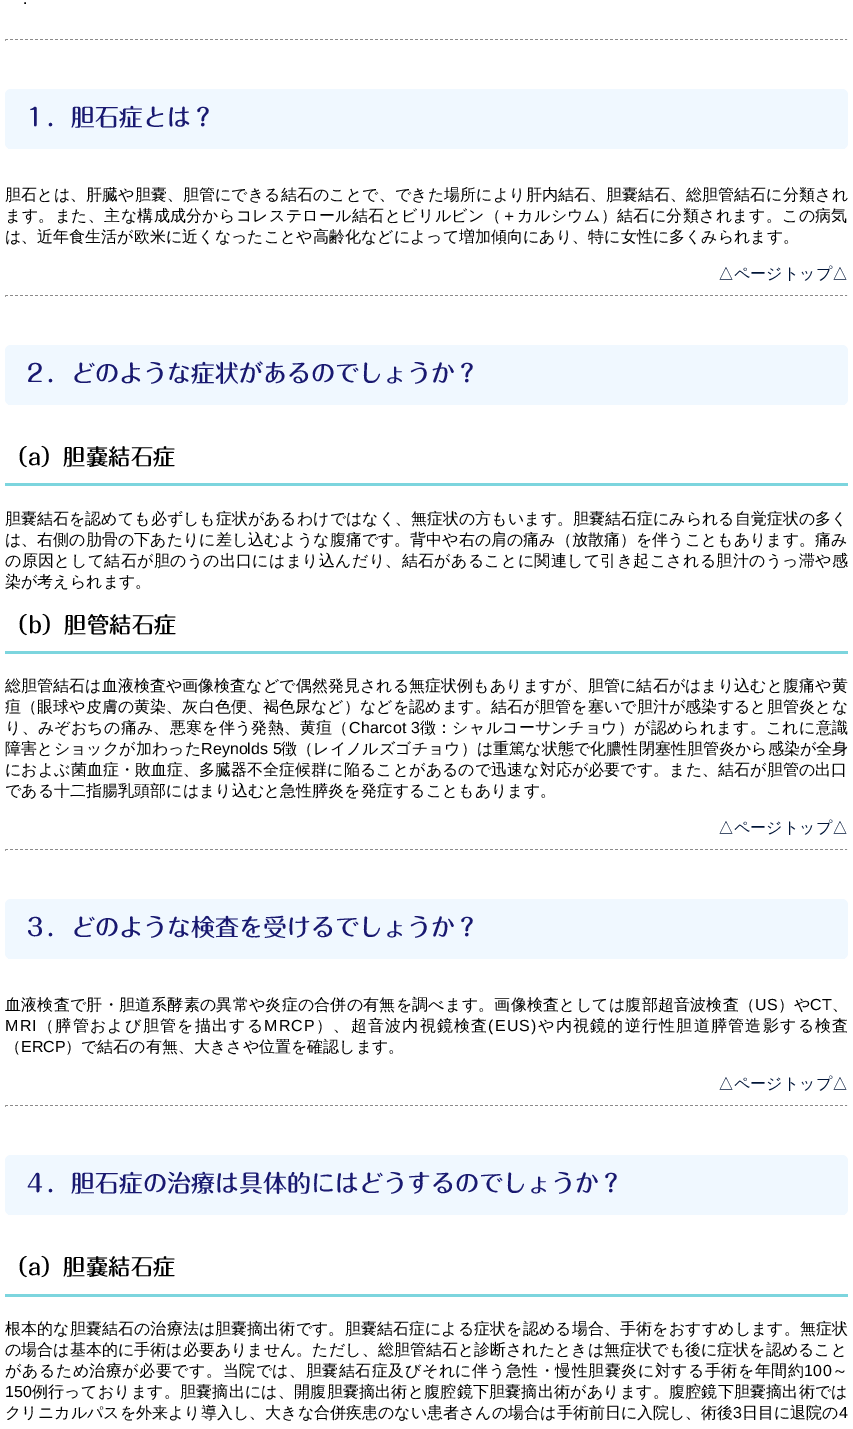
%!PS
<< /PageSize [853 1429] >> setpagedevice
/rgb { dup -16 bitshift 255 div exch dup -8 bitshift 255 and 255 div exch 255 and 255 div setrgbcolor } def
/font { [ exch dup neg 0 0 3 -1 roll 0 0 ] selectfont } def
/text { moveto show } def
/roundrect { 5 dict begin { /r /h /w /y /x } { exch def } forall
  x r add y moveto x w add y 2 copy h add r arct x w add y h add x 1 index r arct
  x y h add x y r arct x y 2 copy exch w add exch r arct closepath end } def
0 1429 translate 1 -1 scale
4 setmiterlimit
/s1 { /WenQuanYiZenHei-Medium 16 font 16#000000 rgb } def
/s2 { /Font-Medium 24 font 16#191970 rgb } def
/s3 { /WenQuanYiZenHei-Medium 16 font 16#001437 rgb } def
/s4 { /Font-Medium 22.5 font 16#000000 rgb } def
/s5 { /LiberationSans-Regular 16 font 16#000000 rgb } def
16#FFFFFF rgb
0 0 853 1429 rectfill
s1
(．) 17 4 text
16#8C8B8B rgb
[3 2] 0 setdash
5 39.5 moveto 848 39.5 lineto stroke
16#EEEEEE rgb
847 39 1 2 rectfill
16#FFFFFF rgb
5 40.5 moveto 848 40.5 lineto stroke
16#9F9F9F rgb
5 39 1 2 rectfill
16#F0F8FF rgb
5 89 843 60 6 roundrect fill
8 148 837 1 rectfill
s2
(１．胆石症とは？) 23 126 text
/WenQuanYiZenHei-Medium 16 font
16#000000 rgb
5 200 moveto 0.07 0 (胆石とは、肝臓や胆嚢、胆管にできる結石のことで、できた場所により肝内結石、胆嚢結石、総胆管結石に分類され) ashow
5 221 moveto 0.3 0 (ます。また、主な構成成分からコレステロール結石とビリルビン（＋カルシウム）結石に分類されます。この病気) ashow
(は、近年食生活が欧米に近くなったことや高齢化などによって増加傾向にあり、特に女性に多くみられます。) 5 242 text
s3
(△ページトップ△) 718 279 text
16#8C8B8B rgb
5 295.5 moveto 848 295.5 lineto stroke
16#EEEEEE rgb
847 295 1 2 rectfill
16#FFFFFF rgb
5 296.5 moveto 848 296.5 lineto stroke
16#9F9F9F rgb
5 295 1 2 rectfill
16#F0F8FF rgb
5 345 843 60 6 roundrect fill
8 404 837 1 rectfill
s2
(２．どのような症状があるのでしょうか？) 23 382 text
16#7CD5DE rgb
5 483 843 3 rectfill
s4
(（a）胆嚢結石症) 5 465 text
s1
(胆嚢結石を認めても必ずしも症状があるわけではなく、無症状の方もいます。胆嚢結石症にみられる自覚症状の多く) 5 524 text
(は、右側の肋骨の下あたりに差し込むような腹痛です。背中や右の肩の痛み（放散痛）を伴うこともあります。痛み) 5 545 text
5 566 moveto 0.3 0 (の原因として結石が胆のうの出口にはまり込んだり、結石があることに関連して引き起こされる胆汁のうっ滞や感) ashow
(染が考えられます。) 5 587 text
16#7CD5DE rgb
5 651 843 3 rectfill
s4
(（b）胆管結石症) 5 633 text
/WenQuanYiZenHei-Medium 16 font
5 691 moveto 0.05 0 (総胆管結石は血液検査や画像検査などで偶然発見される無症状例もありますが、胆管に結石がはまり込むと腹痛や黄) ashow
5 712 moveto 0.07 0 (疸（眼球や皮膚の黄染、灰白色便、褐色尿など）などを認めます。結石が胆管を塞いで胆汁が感染すると胆管炎とな) ashow
5 733 moveto 0.2 0 (り、みぞおちの痛み、悪寒を伴う発熱、黄疸（) ashow
/LiberationSans-Regular 16 font
349 733 moveto 0.2 0 (Charcot 3) ashow
/WenQuanYiZenHei-Medium 16 font
420 733 moveto 0.2 0 (徴：シャルコーサンチョウ）が認められます。これに意識) ashow
5 754 moveto 0.05 0 (障害とショックが加わった) ashow
/LiberationSans-Regular 16 font
201 754 moveto 0.05 0 (Reynolds 5) ashow
/WenQuanYiZenHei-Medium 16 font
281 754 moveto 0.05 0 (徴（レイノルズゴチョウ）は重篤な状態で化膿性閉塞性胆管炎から感染が全身) ashow
5 775 moveto 0.05 0 (におよぶ菌血症・敗血症、多臓器不全症候群に陥ることがあるので迅速な対応が必要です。また、結石が胆管の出口) ashow
(である十二指腸乳頭部にはまり込むと急性膵炎を発症することもあります。) 5 796 text
s3
(△ページトップ△) 718 833 text
16#8C8B8B rgb
5 849.5 moveto 848 849.5 lineto stroke
16#EEEEEE rgb
847 849 1 2 rectfill
16#FFFFFF rgb
5 850.5 moveto 848 850.5 lineto stroke
16#9F9F9F rgb
5 849 1 2 rectfill
16#F0F8FF rgb
5 899 843 60 6 roundrect fill
8 958 837 1 rectfill
s2
(３．どのような検査を受けるでしょうか？) 23 936 text
/WenQuanYiZenHei-Medium 16 font
16#000000 rgb
5 1010 moveto 0.2 0 (血液検査で肝・胆道系酵素の異常や炎症の合併の有無を調べます。画像検査としては腹部超音波検査（) ashow
/LiberationSans-Regular 16 font
755 1010 moveto 0.2 0 (US) ashow
/WenQuanYiZenHei-Medium 16 font
778 1010 moveto 0.2 0 (）や) ashow
/LiberationSans-Regular 16 font
810 1010 moveto 0.2 0 (CT) ashow
/WenQuanYiZenHei-Medium 16 font
832 1010 moveto 0.2 0 (、) ashow
/LiberationSans-Regular 16 font
5 1031 moveto 1.25 0 (MRI) ashow
/WenQuanYiZenHei-Medium 16 font
38 1031 moveto 1.25 0 (（膵管および胆管を描出する) ashow
/LiberationSans-Regular 16 font
264 1031 moveto 1.25 0 (MRCP) ashow
/WenQuanYiZenHei-Medium 16 font
316 1031 moveto 1.25 0 (）、超音波内視鏡検査) ashow
/LiberationSans-Regular 16 font
488 1031 moveto 1.25 0 (\(EUS\)) ashow
/WenQuanYiZenHei-Medium 16 font
538 1031 moveto 1.25 0 (や内視鏡的逆行性胆道膵管造影する検査) ashow
(（) 5 1052 text
s5
(ERCP) 21 1052 text
s1
(）で結石の有無、大きさや位置を確認します。) 65 1052 text
s3
(△ページトップ△) 718 1089 text
16#8C8B8B rgb
5 1105.5 moveto 848 1105.5 lineto stroke
16#EEEEEE rgb
847 1105 1 2 rectfill
16#FFFFFF rgb
5 1106.5 moveto 848 1106.5 lineto stroke
16#9F9F9F rgb
5 1105 1 2 rectfill
16#F0F8FF rgb
5 1155 843 60 6 roundrect fill
8 1214 837 1 rectfill
s2
(４．胆石症の治療は具体的にはどうするのでしょうか？) 23 1192 text
16#7CD5DE rgb
5 1294 843 3 rectfill
s4
(（a）胆嚢結石症) 5 1275 text
/WenQuanYiZenHei-Medium 16 font
5 1334 moveto 0.08 0 (根本的な胆嚢結石の治療法は胆嚢摘出術です。胆嚢結石症による症状を認める場合、手術をおすすめします。無症状) ashow
(の場合は基本的に手術は必要ありません。ただし、総胆管結石と診断されたときは無症状でも後に症状を認めること) 5 1355 text
5 1376 moveto 0.5 0 (があるため治療が必要です。当院では、胆嚢結石症及びそれに伴う急性・慢性胆嚢炎に対する手術を年間約) ashow
/LiberationSans-Regular 16 font
804 1376 moveto 0.5 0 (100) ashow
/WenQuanYiZenHei-Medium 16 font
832 1376 moveto 0.5 0 (～) ashow
/LiberationSans-Regular 16 font
5 1397 moveto 0.2 0 (150) ashow
/WenQuanYiZenHei-Medium 16 font
32 1397 moveto 0.2 0 (例行っております。胆嚢摘出には、開腹胆嚢摘出術と腹腔鏡下胆嚢摘出術があります。腹腔鏡下胆嚢摘出術では) ashow
(クリニカルパスを外来より導入し、大きな合併疾患のない患者さんの場合は手術前日に入院し、術後) 5 1418 text
s5
(3) 733 1418 text
s1
(日目に退院の) 742 1418 text
s5
(4) 839 1418 text
showpage
